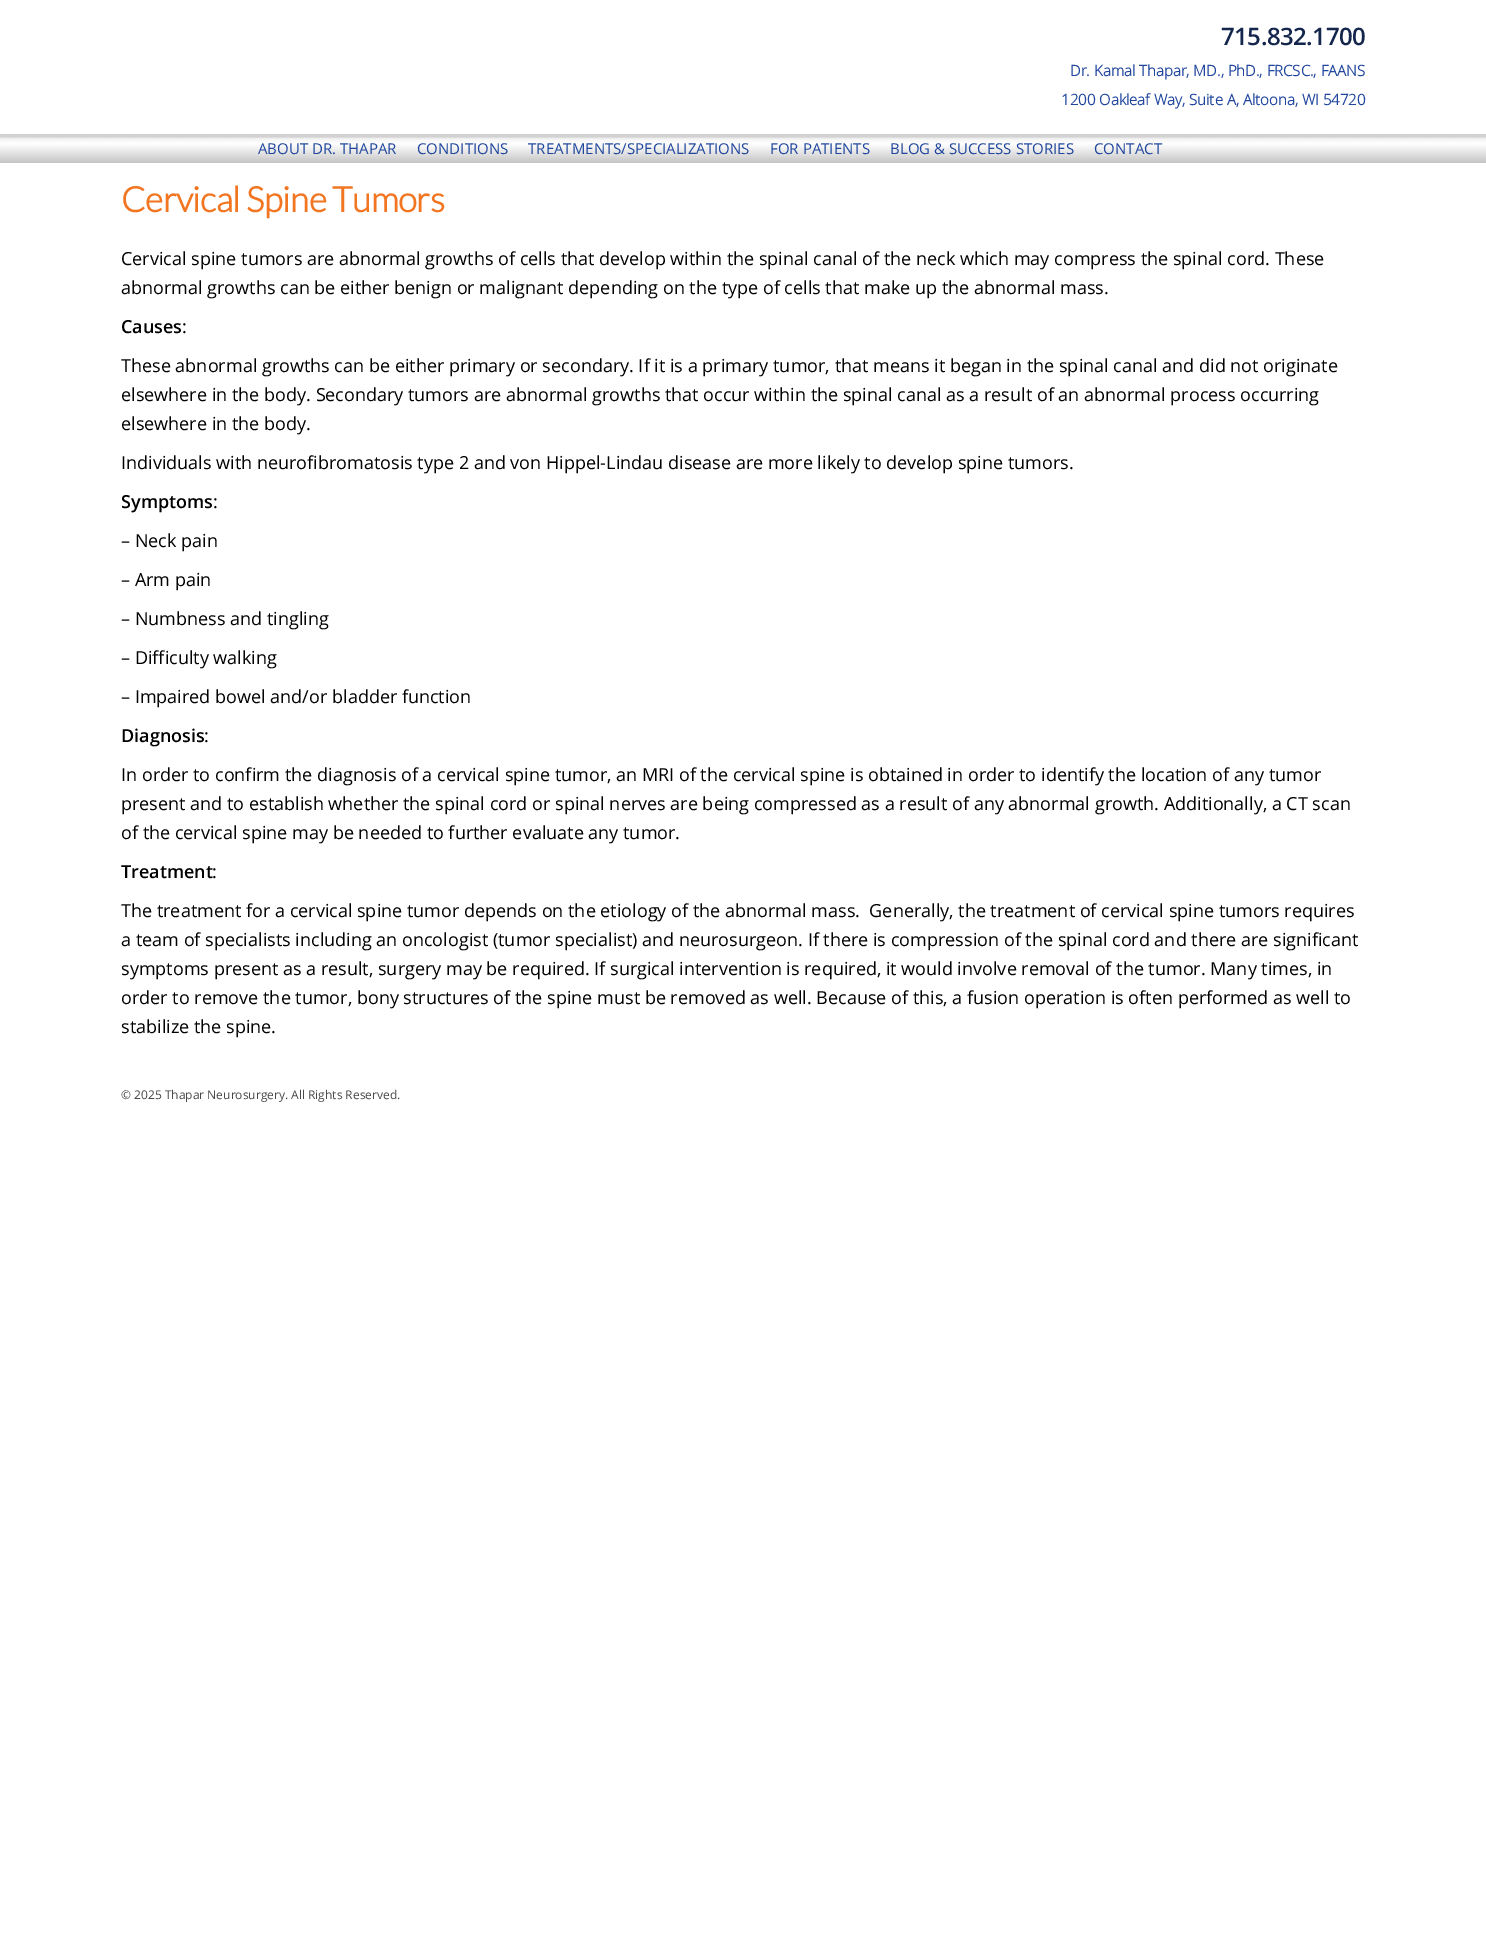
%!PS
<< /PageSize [1486 1959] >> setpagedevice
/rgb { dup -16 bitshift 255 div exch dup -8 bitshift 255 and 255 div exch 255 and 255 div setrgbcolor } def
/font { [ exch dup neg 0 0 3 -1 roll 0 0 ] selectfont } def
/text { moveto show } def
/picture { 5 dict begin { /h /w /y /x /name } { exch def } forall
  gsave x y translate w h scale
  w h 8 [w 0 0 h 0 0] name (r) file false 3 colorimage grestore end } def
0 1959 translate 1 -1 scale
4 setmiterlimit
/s1 { /OpenSans-Bold 15 font 16#20479D rgb } def
/s2 { /OpenSans-Regular 15 font 16#20479D rgb } def
/s3 { /OpenSans-Regular 18 font 16#000000 rgb } def
/s4 { /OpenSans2-SemiBold 18 font 16#000000 rgb } def
/s5 { /OpenSans-Regular 12 font 16#494949 rgb } def
16#FFFFFF rgb
0 0 1486 1959 rectfill
/OpenSans-SemiBold 24 font
16#14264C rgb
1221 45 moveto -0.5 0 (715.832.1700) ashow
s1
(Dr. Kamal Thapar, MD., PhD., FRCSC., FAANS) 1070 76 text
(1200 Oakleaf Way, Suite A, Altoona, WI 54720) 1061 105 text
(pic1.raw) 0 134 1486 29 picture
s2
(ABOUT DR. THAPAR) 258 154 text
(CONDITIONS) 417 154 text
(TREATMENTS/SPECIALIZATIONS) 528 154 text
(FOR PATIENTS) 770 154 text
(BLOG & SUCCESS STORIES) 890 154 text
(CONTACT) 1094 154 text
/Lato-Bold 35 font
16#F27521 rgb
121 212 moveto -0.5 0 (Cervical Spine Tumors) ashow
s3
(Cervical spine tumors are abnormal growths of cells that develop within the spinal canal of the neck which may compress the spinal cord. These) 121 265 text
(abnormal growths can be either benign or malignant depending on the type of cells that make up the abnormal mass.) 121 294 text
s4
(Causes) 121 333 text
s3
(:) 182 333 text
(These abnormal growths can be either primary or secondary. If it is a primary tumor, that means it began in the spinal canal and did not originate) 121 372 text
(elsewhere in the body. Secondary tumors are abnormal growths that occur within the spinal canal as a result of an abnormal process occurring) 121 401 text
(elsewhere in the body.) 121 430 text
(Individuals with neurofibromatosis type 2 and von Hippel-Lindau disease are more likely to develop spine tumors.) 121 469 text
s4
(Symptoms) 121 508 text
s3
(:) 213 508 text
(– Neck pain) 121 547 text
(– Arm pain) 121 586 text
(– Numbness and tingling) 121 625 text
(– Difficulty walking) 121 664 text
(– Impaired bowel and/or bladder function) 121 703 text
s4
(Diagnosis) 121 742 text
s3
(:) 204 742 text
(In order to confirm the diagnosis of a cervical spine tumor, an MRI of the cervical spine is obtained in order to identify the location of any tumor) 121 781 text
(present and to establish whether the spinal cord or spinal nerves are being compressed as a result of any abnormal growth. Additionally, a CT scan) 121 810 text
(of the cervical spine may be needed to further evaluate any tumor.) 121 839 text
s4
(Treatment) 121 878 text
s3
(:) 212 878 text
(The treatment for a cervical spine tumor depends on the etiology of the abnormal mass.  Generally, the treatment of cervical spine tumors requires) 121 917 text
(a team of specialists including an oncologist \(tumor specialist\) and neurosurgeon. If there is compression of the spinal cord and there are significant) 121 946 text
(symptoms present as a result, surgery may be required. If surgical intervention is required, it would involve removal of the tumor. Many times, in) 121 975 text
(order to remove the tumor, bony structures of the spine must be removed as well. Because of this, a fusion operation is often performed as well to) 121 1004 text
(stabilize the spine.) 121 1033 text
s5
(© 2025 Thapar Neurosurgery. All Rights Reserved.) 121 1099 text
showpage
